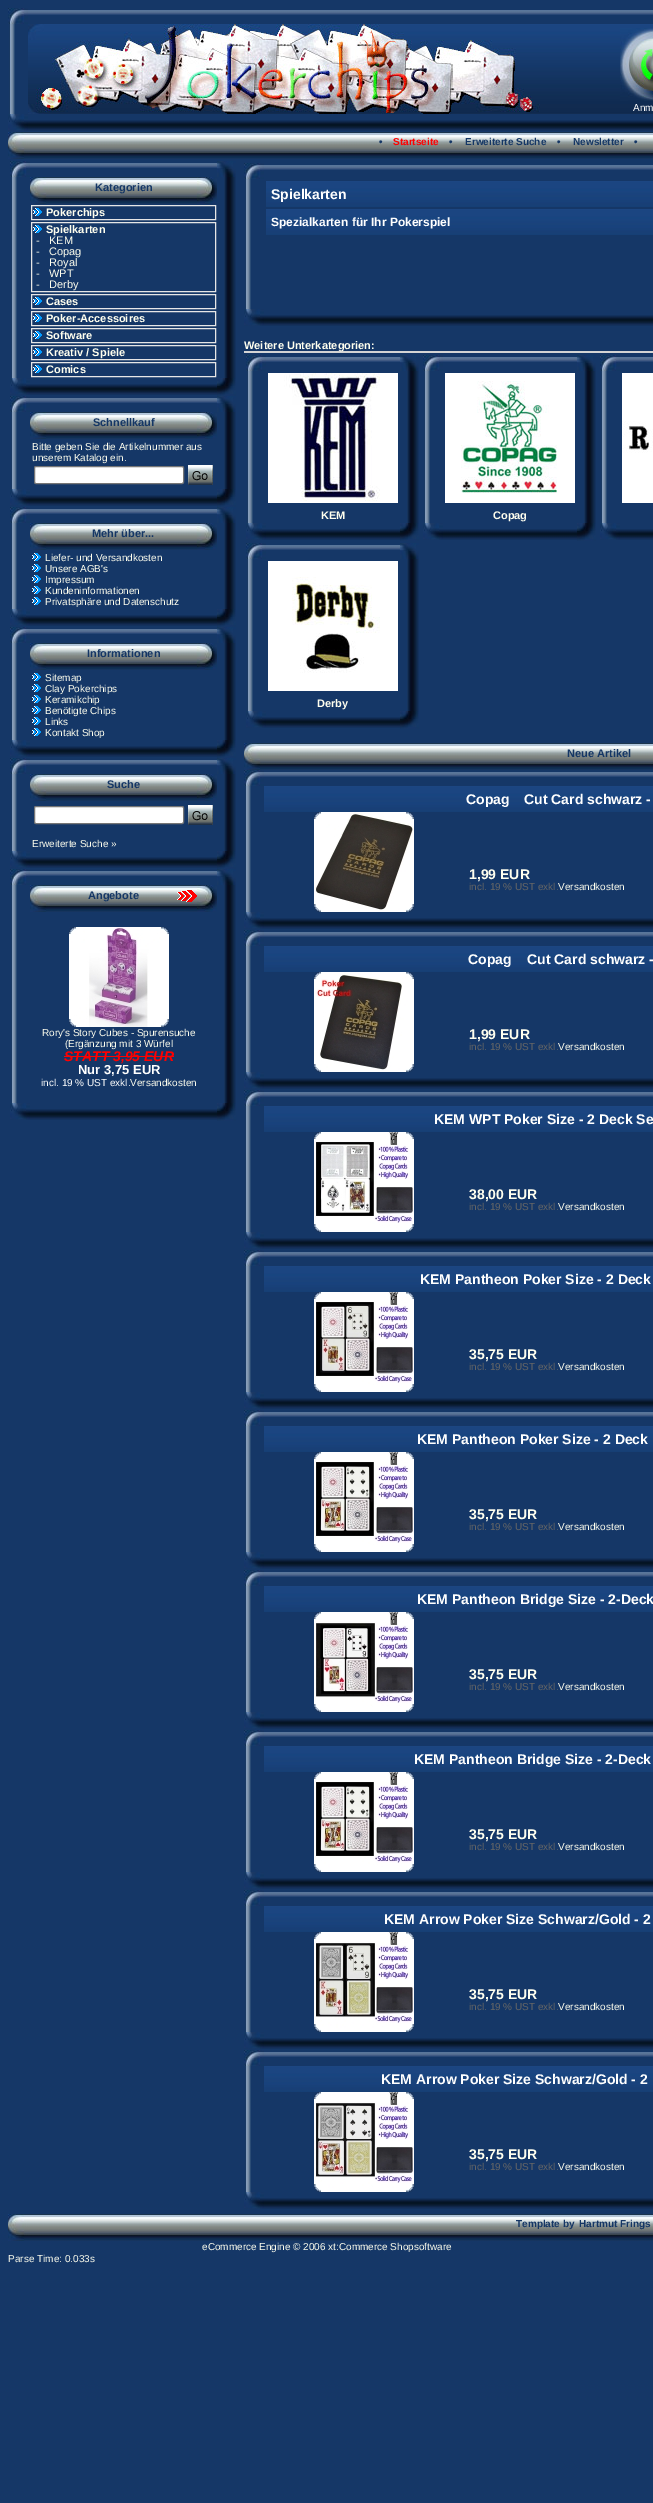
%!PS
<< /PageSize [653 2503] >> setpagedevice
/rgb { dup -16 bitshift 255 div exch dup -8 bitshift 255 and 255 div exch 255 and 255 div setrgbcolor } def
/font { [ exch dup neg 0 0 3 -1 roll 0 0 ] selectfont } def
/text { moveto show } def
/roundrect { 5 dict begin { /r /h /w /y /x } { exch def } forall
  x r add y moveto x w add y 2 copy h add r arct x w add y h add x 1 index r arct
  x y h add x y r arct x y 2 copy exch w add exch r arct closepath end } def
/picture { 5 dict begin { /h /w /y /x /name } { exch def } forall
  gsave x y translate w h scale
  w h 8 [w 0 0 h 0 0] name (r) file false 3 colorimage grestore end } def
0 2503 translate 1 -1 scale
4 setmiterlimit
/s1 { /LiberationSans-Regular 10 font 16#FFFFFF rgb } def
/s2 { /LiberationSans-Bold 10 font 16#143665 rgb } def
/s3 { /LiberationSans-Bold 10 font 16#FF0000 rgb } def
/s4 { /LiberationSans-Bold 11 font 16#143665 rgb } def
/s5 { /LiberationSans-Bold 11 font 16#FFFFEF rgb } def
/s6 { /LiberationSans-Regular 11 font 16#FFFFEF rgb } def
/s7 { /LiberationSans-Regular 10 font 16#FFFFEF rgb } def
/s8 { /LiberationSans-BoldItalic 14 font 16#FF0000 rgb } def
/s9 { /LiberationSans-Bold 13 font 16#FFFFFF rgb } def
/s10 { /LiberationSans-Bold 14 font 16#FFFFFF rgb } def
/s11 { /LiberationSans-Bold 12 font 16#FFFFFF rgb } def
/s12 { /LiberationSans-Bold 14 font 16#FFFFEF rgb } def
/s13 { /LiberationSans-Regular 10 font 16#666666 rgb } def
16#153767 rgb
0 0 653 2503 rectfill
(pic1.raw) 8 8 20 16 picture
(pic2.raw) 28 10 625 5 picture
(pic3.raw) 9 24 6 90 picture
(pic4.raw) 540 24 113 90 picture
(pic5.raw) 28 24 512 90 picture
(pic6.raw) 620 28 33 73 picture
s1
(Anm) 633 111 text
(pic7.raw) 8 114 20 17 picture
(pic8.raw) 28 120 625 11 picture
(pic9.raw) 8 132 20 27 picture
(pic10.raw) 28 132 625 27 picture
s2
(•) 379 145 text
s3
(Startseite) 393 145 text
s2
(•) 449 145 text
(Erweiterte Suche) 465 145 text
(•) 557 145 text
(Newsletter) 573 145 text
(•) 634 145 text
(pic1.raw) 10 161 20 16 picture
(pic11.raw) 30 163 187 5 picture
(pic12.raw) 217 161 19 16 picture
(pic13.raw) 11 177 6 201 picture
(pic9.raw) 30 177 20 27 picture
(pic14.raw) 50 177 147 27 picture
s4
(Kategorien) 95 191 text
(pic15.raw) 197 177 20 27 picture
16#E6E6E6 rgb
31.5 205.5 184 14 rectstroke
(pic16.raw) 33 208 9 8 picture
s5
(Pokerchips) 46 216 text
16#E6E6E6 rgb
31.5 222.5 184 69 rectstroke
(pic16.raw) 33 225 9 8 picture
s5
(Spielkarten) 46 233 text
s6
(-) 36 244 text
(KEM) 49 244 text
(-) 36 255 text
(Copag) 49 255 text
(-) 36 266 text
(Royal) 49 266 text
(-) 36 277 text
(WPT) 49 277 text
(-) 36 288 text
(Derby) 49 288 text
16#E6E6E6 rgb
31.5 294.5 184 14 rectstroke
(pic16.raw) 33 297 9 8 picture
s5
(Cases) 46 305 text
16#E6E6E6 rgb
31.5 311.5 184 14 rectstroke
(pic16.raw) 33 314 9 8 picture
s5
(Poker-Accessoires) 46 322 text
16#E6E6E6 rgb
31.5 328.5 184 14 rectstroke
(pic16.raw) 33 331 9 8 picture
s5
(Software) 46 339 text
16#E6E6E6 rgb
31.5 345.5 184 14 rectstroke
(pic16.raw) 33 348 9 8 picture
s5
(Kreativ / Spiele) 46 356 text
16#E6E6E6 rgb
31.5 362.5 184 14 rectstroke
(pic16.raw) 33 365 9 8 picture
s5
(Comics) 46 373 text
(pic17.raw) 224 177 12 201 picture
(pic7.raw) 10 378 20 17 picture
(pic18.raw) 30 384 187 11 picture
(pic19.raw) 217 378 19 18 picture
(pic1.raw) 10 396 20 16 picture
(pic11.raw) 30 398 187 5 picture
(pic12.raw) 217 396 19 16 picture
(pic20.raw) 11 412 6 77 picture
(pic9.raw) 30 412 20 27 picture
(pic14.raw) 50 412 147 27 picture
s4
(Schnellkauf) 93 426 text
(pic15.raw) 197 412 20 27 picture
s7
(Bitte geben Sie die Artikelnummer aus) 32 450 text
(unserem Katalog ein.) 32 461 text
16#FFFFFF rgb
34.5 466.5 149 17 1.5 roundrect gsave fill grestore
16#767676 rgb
stroke
(pic21.raw) 188 465 25 20 picture
(pic22.raw) 224 412 12 77 picture
(pic7.raw) 10 489 20 17 picture
(pic18.raw) 30 495 187 11 picture
(pic19.raw) 217 489 19 18 picture
(pic1.raw) 10 507 20 16 picture
(pic11.raw) 30 509 187 5 picture
(pic12.raw) 217 507 19 16 picture
(pic23.raw) 11 523 6 86 picture
(pic9.raw) 30 523 20 27 picture
(pic14.raw) 50 523 147 27 picture
s4
(Mehr über...) 92 537 text
(pic15.raw) 197 523 20 27 picture
(pic16.raw) 32 553 9 8 picture
s7
(Liefer- und Versandkosten) 45 561 text
(pic16.raw) 32 564 9 8 picture
(Unsere AGB's) 45 572 text
(pic16.raw) 32 575 9 8 picture
(Impressum) 45 583 text
(pic16.raw) 32 586 9 8 picture
(Kundeninformationen) 45 594 text
(pic16.raw) 32 597 9 8 picture
(Privatsphäre und Datenschutz) 45 605 text
(pic24.raw) 224 523 12 86 picture
(pic7.raw) 10 609 20 17 picture
(pic18.raw) 30 615 187 11 picture
(pic19.raw) 217 609 19 18 picture
(pic1.raw) 10 627 20 16 picture
(pic11.raw) 30 629 187 5 picture
(pic12.raw) 217 627 19 16 picture
(pic25.raw) 11 643 6 97 picture
(pic9.raw) 30 643 20 27 picture
(pic14.raw) 50 643 147 27 picture
s4
(Informationen) 87 657 text
(pic15.raw) 197 643 20 27 picture
(pic16.raw) 32 673 9 8 picture
s7
(Sitemap) 45 681 text
(pic16.raw) 32 684 9 8 picture
(Clay Pokerchips) 45 692 text
(pic16.raw) 32 695 9 8 picture
(Keramikchip) 45 703 text
(pic16.raw) 32 706 9 8 picture
(Benötigte Chips) 45 714 text
(pic16.raw) 32 717 9 8 picture
(Links) 45 725 text
(pic16.raw) 32 728 9 8 picture
(Kontakt Shop) 45 736 text
(pic26.raw) 224 643 12 97 picture
(pic7.raw) 10 740 20 17 picture
(pic18.raw) 30 746 187 11 picture
(pic19.raw) 217 740 19 18 picture
(pic1.raw) 10 758 20 16 picture
(pic11.raw) 30 760 187 5 picture
(pic12.raw) 217 758 19 16 picture
(pic20.raw) 11 774 6 77 picture
(pic9.raw) 30 774 20 27 picture
(pic14.raw) 50 774 147 27 picture
s4
(Suche) 107 788 text
(pic15.raw) 197 774 20 27 picture
16#FFFFFF rgb
34.5 806.5 149 17 1.5 roundrect gsave fill grestore
16#767676 rgb
stroke
(pic21.raw) 188 805 25 20 picture
s7
(Erweiterte Suche ») 32 847 text
(pic22.raw) 224 774 12 77 picture
(pic7.raw) 10 851 20 17 picture
(pic18.raw) 30 857 187 11 picture
(pic19.raw) 217 851 19 18 picture
(pic1.raw) 10 869 20 16 picture
(pic11.raw) 30 871 187 5 picture
(pic12.raw) 217 869 19 16 picture
(pic27.raw) 11 885 6 218 picture
(pic9.raw) 30 885 20 27 picture
(pic14.raw) 50 885 147 27 picture
s4
(Angebote) 88 899 text
(pic28.raw) 177 890 20 12 picture
(pic15.raw) 197 885 20 27 picture
(pic29.raw) 69 927 100 100 picture
s7
(Rory's Story Cubes - Spurensuche) 42 1036 text
(\(Ergänzung mit 3 Würfel) 65 1047 text
s8
(STATT 3,95 EUR) 64 1061 text
64 1056 110 1 rectfill
s9
(Nur 3,75 EUR) 78 1074 text
s1
(incl. 19 % UST exkl.) 41 1086 text
s7
(Versandkosten) 130 1086 text
(pic30.raw) 224 885 12 218 picture
(pic7.raw) 10 1103 20 17 picture
(pic18.raw) 30 1109 187 11 picture
(pic19.raw) 217 1103 19 18 picture
(pic1.raw) 244 163 20 16 picture
(pic31.raw) 264 165 389 5 picture
(pic32.raw) 245 179 6 130 picture
(pic33.raw) 266 181 387 26 picture
s10
(Spielkarten) 271 199 text
(pic33.raw) 266 209 387 26 picture
s11
(Spezialkarten für Ihr Pokerspiel) 271 226 text
(pic7.raw) 244 309 20 17 picture
(pic34.raw) 264 315 389 11 picture
16#D4D4D4 rgb
244 351 409 2 rectfill
s5
(Weitere Unterkategorien:) 244 349 text
(pic1.raw) 246 355 20 16 picture
(pic35.raw) 266 357 134 5 picture
(pic12.raw) 400 355 19 16 picture
(pic36.raw) 247 371 6 152 picture
(pic37.raw) 268 373 130 130 picture
(KEM) 321 519 text
(pic38.raw) 407 371 12 152 picture
(pic7.raw) 246 523 20 17 picture
(pic39.raw) 266 529 134 11 picture
(pic19.raw) 400 523 19 18 picture
(pic1.raw) 423 355 20 16 picture
(pic35.raw) 443 357 134 5 picture
(pic12.raw) 577 355 19 16 picture
(pic36.raw) 424 371 6 152 picture
(pic40.raw) 445 373 130 130 picture
(Copag) 493 519 text
(pic38.raw) 584 371 12 152 picture
(pic7.raw) 423 523 20 17 picture
(pic39.raw) 443 529 134 11 picture
(pic19.raw) 577 523 19 18 picture
(pic1.raw) 600 355 20 16 picture
(pic41.raw) 620 357 33 5 picture
(pic36.raw) 601 371 6 152 picture
(pic42.raw) 622 373 31 130 picture
(pic7.raw) 600 523 20 17 picture
(pic43.raw) 620 529 33 11 picture
(pic1.raw) 246 543 20 16 picture
(pic35.raw) 266 545 134 5 picture
(pic12.raw) 400 543 19 16 picture
(pic36.raw) 247 559 6 152 picture
(pic44.raw) 268 561 130 130 picture
(Derby) 317 707 text
(pic38.raw) 407 559 12 152 picture
(pic7.raw) 246 711 20 17 picture
(pic39.raw) 266 717 134 11 picture
(pic19.raw) 400 711 19 18 picture
(pic9.raw) 244 743 20 27 picture
(pic45.raw) 264 743 389 27 picture
s4
(Neue Artikel) 567 757 text
(pic1.raw) 244 770 20 16 picture
(pic31.raw) 264 772 389 5 picture
(pic46.raw) 245 786 6 126 picture
(pic47.raw) 264 786 389 26 picture
s10
(Copag) 466 804 text
(Cut Card schwarz -) 524 804 text
(pic48.raw) 314 812 100 100 picture
s12
(1,99 EUR) 469 879 text
s13
(incl. 19 % UST exkl.) 469 890 text
s7
(Versandkosten) 558 890 text
(pic7.raw) 244 912 20 17 picture
(pic34.raw) 264 918 389 11 picture
(pic1.raw) 244 930 20 16 picture
(pic31.raw) 264 932 389 5 picture
(pic46.raw) 245 946 6 126 picture
(pic47.raw) 264 946 389 26 picture
s10
(Copag) 468 964 text
(Cut Card schwarz -) 527 964 text
(pic49.raw) 314 972 100 100 picture
s12
(1,99 EUR) 469 1039 text
s13
(incl. 19 % UST exkl.) 469 1050 text
s7
(Versandkosten) 558 1050 text
(pic7.raw) 244 1072 20 17 picture
(pic34.raw) 264 1078 389 11 picture
(pic1.raw) 244 1090 20 16 picture
(pic31.raw) 264 1092 389 5 picture
(pic46.raw) 245 1106 6 126 picture
(pic47.raw) 264 1106 389 26 picture
s10
(KEM WPT Poker Size - 2 Deck Se) 434 1124 text
(pic50.raw) 314 1132 100 100 picture
s12
(38,00 EUR) 469 1199 text
s13
(incl. 19 % UST exkl.) 469 1210 text
s7
(Versandkosten) 558 1210 text
(pic7.raw) 244 1232 20 17 picture
(pic34.raw) 264 1238 389 11 picture
(pic1.raw) 244 1250 20 16 picture
(pic31.raw) 264 1252 389 5 picture
(pic46.raw) 245 1266 6 126 picture
(pic47.raw) 264 1266 389 26 picture
s10
(KEM Pantheon Poker Size - 2 Deck) 420 1284 text
(pic51.raw) 314 1292 100 100 picture
s12
(35,75 EUR) 469 1359 text
s13
(incl. 19 % UST exkl.) 469 1370 text
s7
(Versandkosten) 558 1370 text
(pic7.raw) 244 1392 20 17 picture
(pic34.raw) 264 1398 389 11 picture
(pic1.raw) 244 1410 20 16 picture
(pic31.raw) 264 1412 389 5 picture
(pic46.raw) 245 1426 6 126 picture
(pic47.raw) 264 1426 389 26 picture
s10
(KEM Pantheon Poker Size - 2 Deck) 417 1444 text
(pic52.raw) 314 1452 100 100 picture
s12
(35,75 EUR) 469 1519 text
s13
(incl. 19 % UST exkl.) 469 1530 text
s7
(Versandkosten) 558 1530 text
(pic7.raw) 244 1552 20 17 picture
(pic34.raw) 264 1558 389 11 picture
(pic1.raw) 244 1570 20 16 picture
(pic31.raw) 264 1572 389 5 picture
(pic46.raw) 245 1586 6 126 picture
(pic47.raw) 264 1586 389 26 picture
s10
(KEM Pantheon Bridge Size - 2-Deck) 417 1604 text
(pic53.raw) 314 1612 100 100 picture
s12
(35,75 EUR) 469 1679 text
s13
(incl. 19 % UST exkl.) 469 1690 text
s7
(Versandkosten) 558 1690 text
(pic7.raw) 244 1712 20 17 picture
(pic34.raw) 264 1718 389 11 picture
(pic1.raw) 244 1730 20 16 picture
(pic31.raw) 264 1732 389 5 picture
(pic46.raw) 245 1746 6 126 picture
(pic47.raw) 264 1746 389 26 picture
s10
(KEM Pantheon Bridge Size - 2-Deck) 414 1764 text
(pic54.raw) 314 1772 100 100 picture
s12
(35,75 EUR) 469 1839 text
s13
(incl. 19 % UST exkl.) 469 1850 text
s7
(Versandkosten) 558 1850 text
(pic7.raw) 244 1872 20 17 picture
(pic34.raw) 264 1878 389 11 picture
(pic1.raw) 244 1890 20 16 picture
(pic31.raw) 264 1892 389 5 picture
(pic46.raw) 245 1906 6 126 picture
(pic47.raw) 264 1906 389 26 picture
s10
(KEM Arrow Poker Size Schwarz/Gold - 2) 384 1924 text
(pic55.raw) 314 1932 100 100 picture
s12
(35,75 EUR) 469 1999 text
s13
(incl. 19 % UST exkl.) 469 2010 text
s7
(Versandkosten) 558 2010 text
(pic7.raw) 244 2032 20 17 picture
(pic34.raw) 264 2038 389 11 picture
(pic1.raw) 244 2050 20 16 picture
(pic31.raw) 264 2052 389 5 picture
(pic46.raw) 245 2066 6 126 picture
(pic47.raw) 264 2066 389 26 picture
s10
(KEM Arrow Poker Size Schwarz/Gold - 2) 381 2084 text
(pic56.raw) 314 2092 100 100 picture
s12
(35,75 EUR) 469 2159 text
s13
(incl. 19 % UST exkl.) 469 2170 text
s7
(Versandkosten) 558 2170 text
(pic7.raw) 244 2192 20 17 picture
(pic34.raw) 264 2198 389 11 picture
(pic9.raw) 8 2214 20 27 picture
(pic10.raw) 28 2214 625 27 picture
s2
(Template by) 516 2227 text
(Hartmut Frings) 579 2227 text
s7
(eCommerce Engine © 2006 xt:Commerce Shopsoftware) 202 2250 text
(Parse Time: 0.033s) 8 2262 text
showpage
